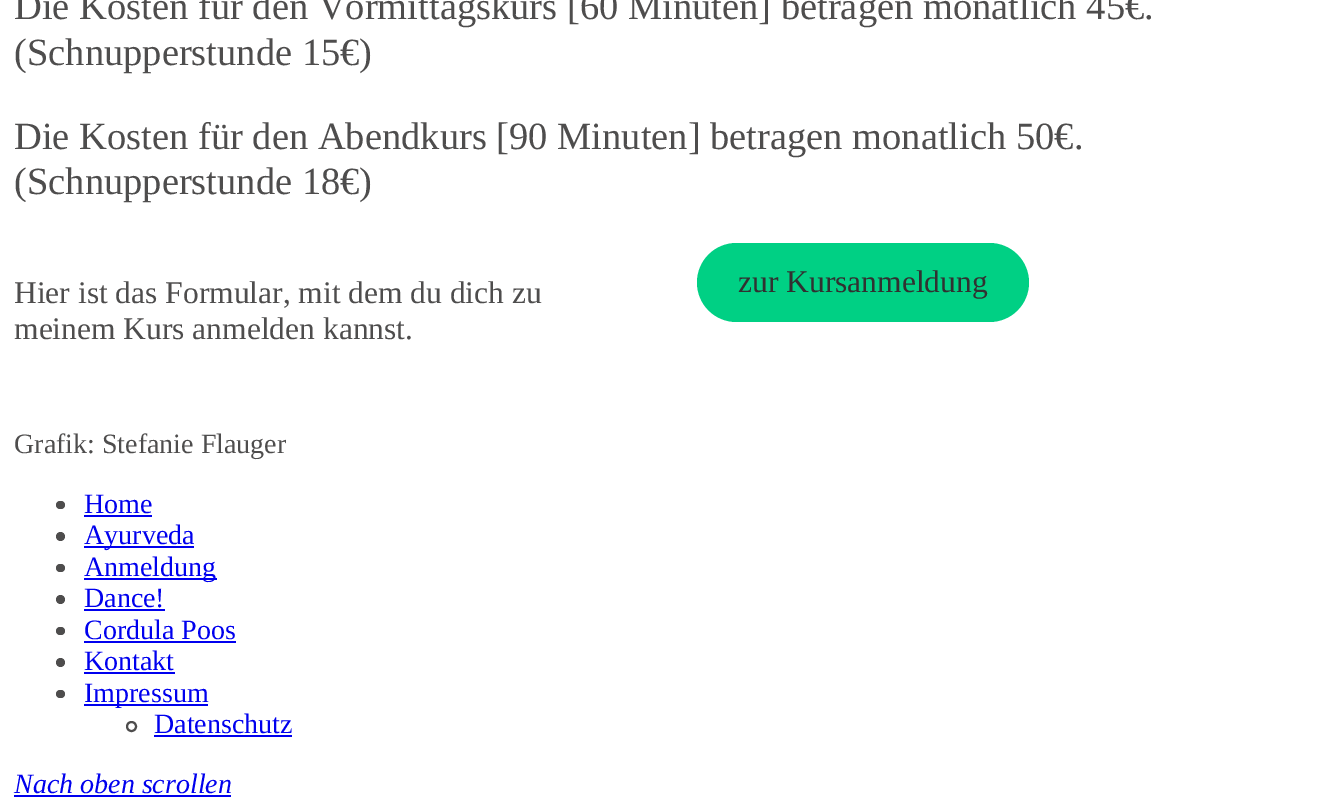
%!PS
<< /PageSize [1337 807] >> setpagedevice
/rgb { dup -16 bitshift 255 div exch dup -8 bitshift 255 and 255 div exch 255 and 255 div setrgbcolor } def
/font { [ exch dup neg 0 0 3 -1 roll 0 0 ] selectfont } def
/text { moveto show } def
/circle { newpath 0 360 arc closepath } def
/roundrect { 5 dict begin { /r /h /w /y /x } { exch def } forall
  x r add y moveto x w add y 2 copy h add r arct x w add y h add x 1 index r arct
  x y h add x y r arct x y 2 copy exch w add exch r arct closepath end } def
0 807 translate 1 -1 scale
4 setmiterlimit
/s1 { /LiberationSerif-Regular 38.5 font 16#4E4D4D rgb } def
/s2 { /LiberationSerif-Regular 31.5 font 16#4E4D4D rgb } def
/s3 { /LiberationSerif-Regular 31.5 font 16#313131 rgb } def
/s4 { /LiberationSerif-Regular 28 font 16#4E4D4D rgb } def
/s5 { /LiberationSerif-Regular 28 font 16#0000EE rgb } def
/s6 { /LiberationSerif-Italic 28 font 16#0000EE rgb } def
16#FFFFFF rgb
0 0 1337 807 rectfill
s1
(Die Kosten für den Vormittagskurs [60 Minuten] betragen monatlich 45€.) 14 19 text
(\(Schnupperstunde 15€\)) 14 65 text
(Die Kosten für den Abendkurs [90 Minuten] betragen monatlich 50€.) 14 149 text
(\(Schnupperstunde 18€\)) 14 194 text
s2
(Hier ist das Formular, mit dem du dich zu) 14 303 text
(meinem Kurs anmelden kannst.) 14 339 text
16#00D084 rgb
697 243 332 79 39.5 roundrect fill
s3
(zur Kursanmeldung) 738 292 text
s4
(Grafik: Stefanie Flauger) 14 453 text
56 501 9 8 4 roundrect fill
s5
(Home) 84 513 text
84 515 68 2 rectfill
16#4E4D4D rgb
60.5 536.5 4.5 circle fill
16#0000EE rgb
84 546 110 2 rectfill
(Ayurveda) 84 544 text
16#4E4D4D rgb
56 564 9 8 4 roundrect fill
16#0000EE rgb
84 578 133 2 rectfill
(Anmeldung) 84 576 text
16#4E4D4D rgb
60.5 599.5 4.5 circle fill
s5
(Dance!) 84 607 text
84 609 81 2 rectfill
16#4E4D4D rgb
56 627 9 8 4 roundrect fill
s5
(Cordula Poos) 84 639 text
84 641 152 2 rectfill
16#4E4D4D rgb
60.5 662.5 4.5 circle fill
s5
(Kontakt) 84 670 text
84 672 91 2 rectfill
16#4E4D4D rgb
56 690 9 8 4 roundrect fill
16#0000EE rgb
84 704 124 2 rectfill
(Impressum) 84 702 text
16#4E4D4D rgb
2 setlinewidth
131.5 726.5 4.5 circle stroke
s5
(Datenschutz) 154 733 text
154 735 138 2 rectfill
s6
(Nach oben scrollen) 14 793 text
14 795 217 2 rectfill
showpage
